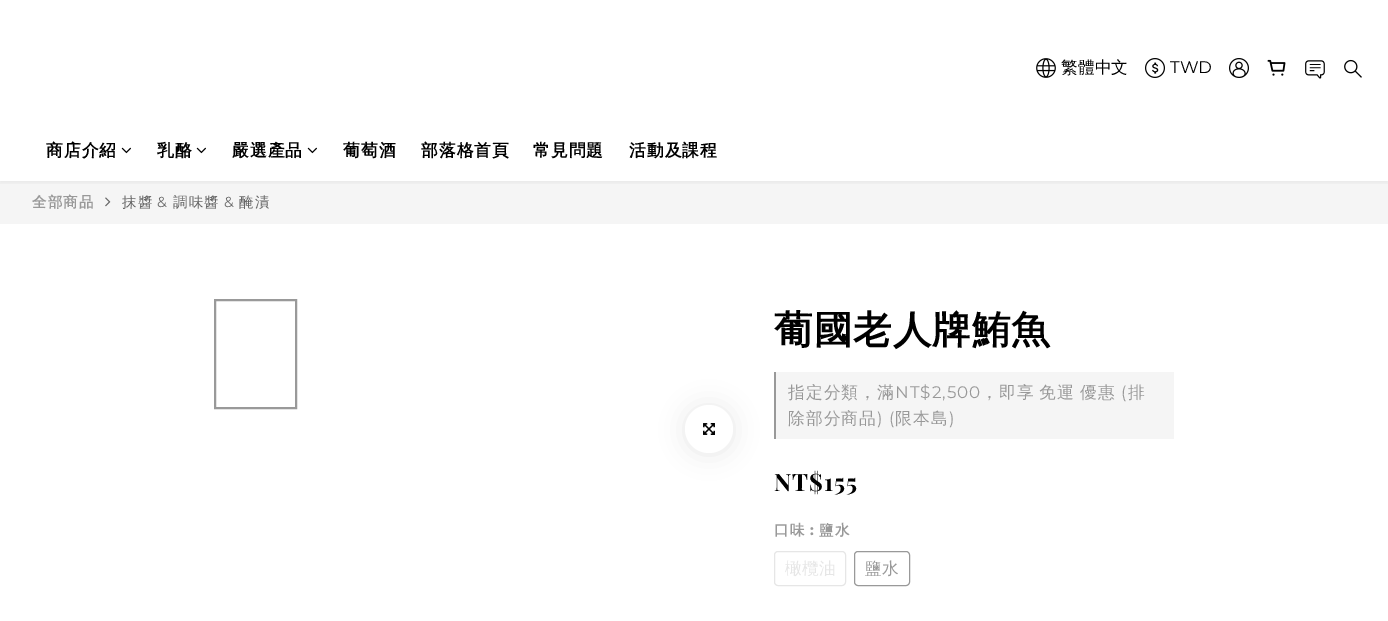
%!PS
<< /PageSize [1388 621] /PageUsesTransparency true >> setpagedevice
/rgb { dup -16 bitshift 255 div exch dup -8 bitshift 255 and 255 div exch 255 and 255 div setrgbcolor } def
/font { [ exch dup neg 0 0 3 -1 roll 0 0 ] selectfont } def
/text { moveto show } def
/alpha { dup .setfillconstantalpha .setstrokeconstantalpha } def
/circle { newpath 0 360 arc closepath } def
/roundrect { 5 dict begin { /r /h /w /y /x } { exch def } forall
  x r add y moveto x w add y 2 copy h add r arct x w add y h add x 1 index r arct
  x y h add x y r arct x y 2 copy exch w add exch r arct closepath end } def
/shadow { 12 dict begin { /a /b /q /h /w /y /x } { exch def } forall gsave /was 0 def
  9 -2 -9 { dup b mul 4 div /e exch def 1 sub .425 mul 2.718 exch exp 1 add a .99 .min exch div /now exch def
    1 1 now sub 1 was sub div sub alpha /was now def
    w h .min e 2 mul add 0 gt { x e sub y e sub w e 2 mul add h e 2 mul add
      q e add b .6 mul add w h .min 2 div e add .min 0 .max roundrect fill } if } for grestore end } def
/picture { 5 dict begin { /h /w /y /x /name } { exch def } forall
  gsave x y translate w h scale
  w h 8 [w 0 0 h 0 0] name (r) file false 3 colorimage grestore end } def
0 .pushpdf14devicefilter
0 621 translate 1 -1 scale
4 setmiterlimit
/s1 { /WenQuanYiZenHei-Medium 16.75 font 16#000000 rgb } def
/s2 { /Montserrat-Regular 16.75 font 16#000000 rgb } def
/s3 { /WenQuanYiZenHei-Medium 16.75 font 16#E6E6E6 rgb } def
/s4 { /WenQuanYiZenHei-Medium 16.75 font 16#999999 rgb } def
16#FFFFFF rgb
0 0 1388 621 rectfill
16#F5F5F5 rgb
0 181 1388 43 rectfill
gsave
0 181 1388 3 rectclip
16#000000 rgb
0 2 1388 181 0 3 0.06 shadow
grestore
(pic1.raw) 1036 58 20 20 picture
s1
(繁體中文) 1061 73 text
(pic2.raw) 1145 58 20 20 picture
s2
(TWD) 1170 73 text
(pic3.raw) 1229 58 20 20 picture
(pic4.raw) 1267 59 19 17 picture
(pic5.raw) 1305 60 20 19 picture
(pic6.raw) 1344 59 18 19 picture
/WenQuanYiZenHei-Bold 16.75 font
46 156 moveto 1 0 (商店介紹) ashow
(pic7.raw) 121 147 10 7 picture
157 156 moveto 1 0 (乳酪) ashow
(pic7.raw) 196 147 10 7 picture
232 156 moveto 1 0 (嚴選產品) ashow
(pic7.raw) 307 147 10 7 picture
343 156 moveto 1 0 (葡萄酒) ashow
421 156 moveto 1 0 (部落格首頁) ashow
533 156 moveto 1 0 (常見問題) ashow
629 156 moveto 1 0 (活動及課程) ashow
/WenQuanYiZenHei-Bold 14.5 font
16#999999 rgb
32 207 moveto 1 0 (全部商品) ashow
(pic8.raw) 105 197 6 10 picture
/WenQuanYiZenHei-Medium 14.5 font
16#666666 rgb
122 207 moveto 1 0 (抹醬) ashow
/Montserrat-Regular 14.5 font
157 207 moveto 1 0 (&) ashow
/WenQuanYiZenHei-Medium 14.5 font
173 207 moveto 1 0 (調味醬) ashow
/Montserrat-Regular 14.5 font
224 207 moveto 1 0 (&) ashow
/WenQuanYiZenHei-Medium 14.5 font
239 207 moveto 1 0 (醃漬) ashow
16#999999 rgb
2 setlinewidth
215 300 81 108 rectstroke
16#000000 rgb
685 406 48 48 24 12 0.09 shadow
16#FFFFFF rgb
709 429 24 circle fill
(pic9.raw) 703 423 12 12 picture
/WenQuanYiZenHei-Bold 38.5 font
16#000000 rgb
774 343 moveto 1 0 (葡國老人牌鮪魚) ashow
16#F5F5F5 rgb
776 372 398 67 rectfill
16#999999 rgb
774 372 2 67 rectfill
/WenQuanYiZenHei-Medium 16.75 font
788 398 moveto 1 0 (指定分類，滿) ashow
/Montserrat-Regular 16.75 font
895 398 moveto 1 0 (NT$2,500) ashow
/WenQuanYiZenHei-Medium 16.75 font
981 398 moveto -1 0 32 1 0 (，即享 免運 優惠) awidthshow
/Montserrat-Regular 16.75 font
1121 398 moveto 1 0 (\() ashow
/WenQuanYiZenHei-Medium 16.75 font
1128 398 moveto 1 0 (排) ashow
788 424 moveto 1 0 (除部分商品) ashow
/Montserrat-Regular 16.75 font
877 424 moveto 1 0 (\) \() ashow
/WenQuanYiZenHei-Medium 16.75 font
895 424 moveto 1 0 (限本島) ashow
/Montserrat-Regular 16.75 font
949 424 moveto 1 0 (\)) ashow
/PlayfairDisplay-Bold 24 font
16#000000 rgb
774 491 moveto 1 0 (NT$155) ashow
/WenQuanYiZenHei-Bold 14.5 font
16#999999 rgb
774 535 moveto 1 0 (口味) ashow
/Montserrat-Bold 14.5 font
810 535 moveto 1 0 (:) ashow
/WenQuanYiZenHei-Bold 14.5 font
819 535 moveto 1 0 (鹽水) ashow
16#E6E6E6 rgb
1 setlinewidth
774.5 551.5 71 34 3.5 roundrect stroke
s3
(橄欖油) 785 574 text
16#999999 rgb
854.5 551.5 55 34 3.5 roundrect stroke
(鹽水) 865 574 text
.poppdf14devicefilter showpage
